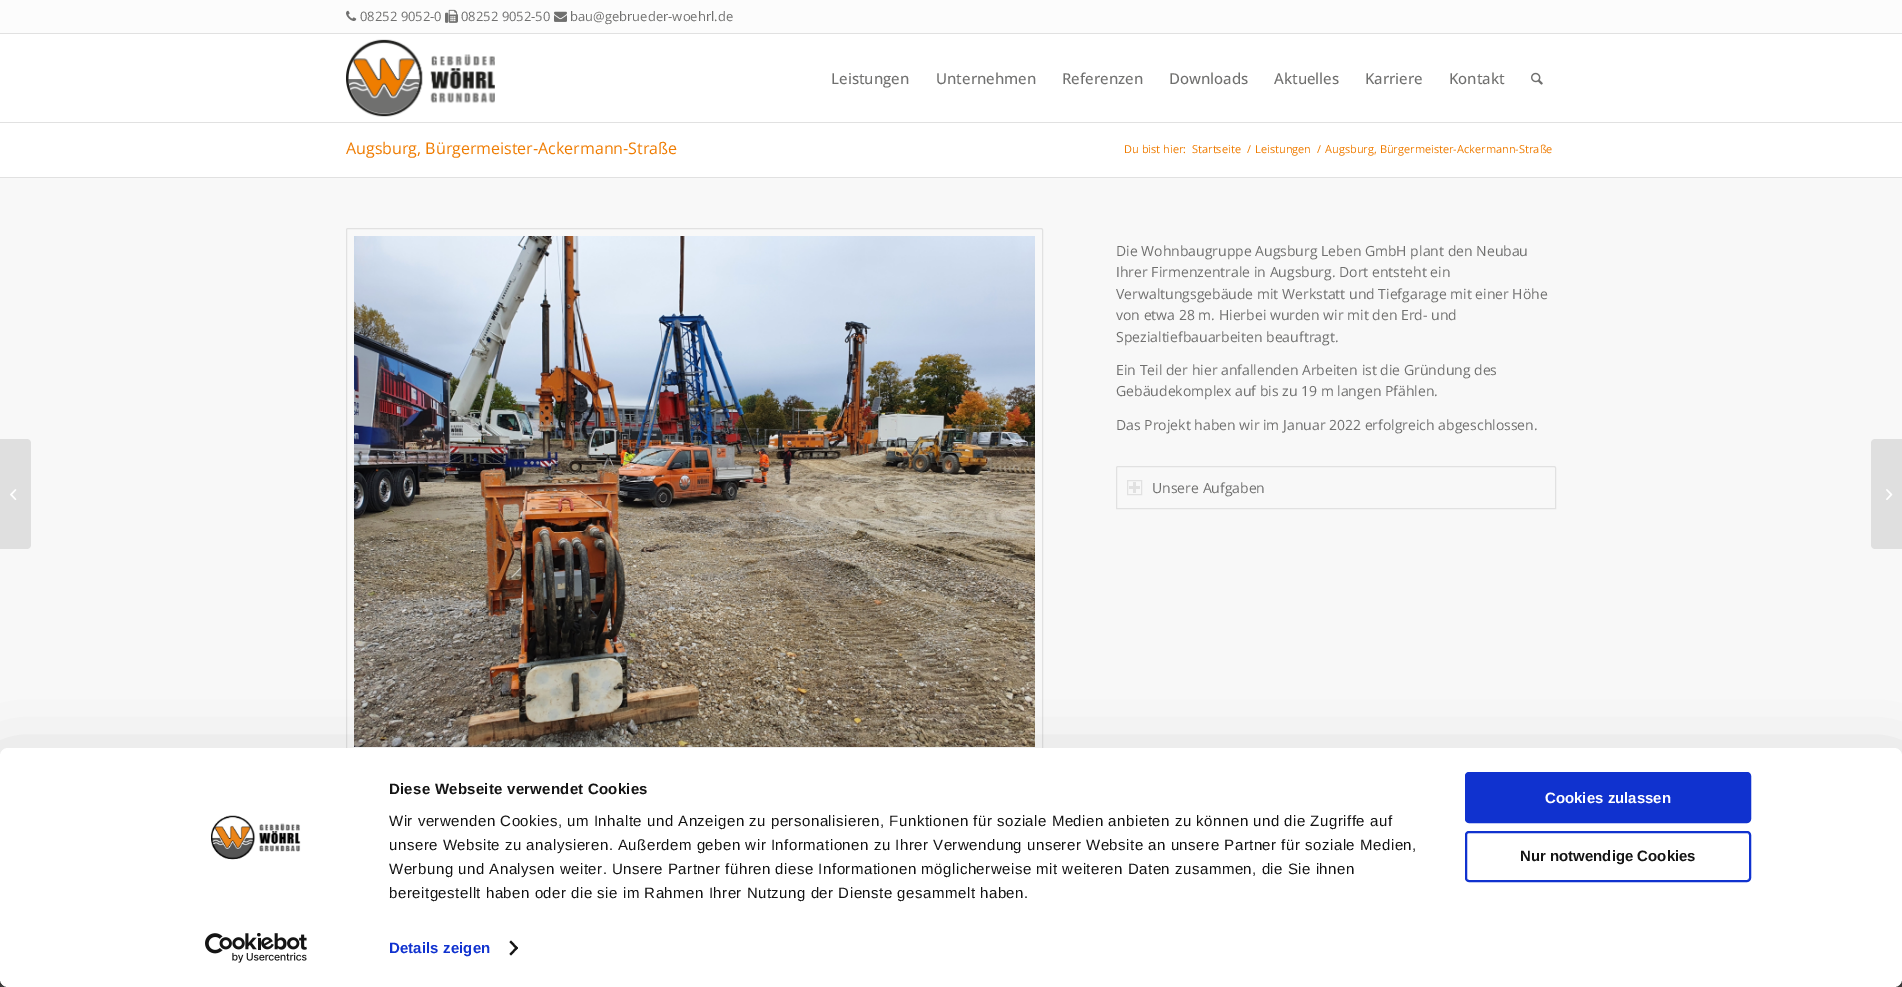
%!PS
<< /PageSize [1902 987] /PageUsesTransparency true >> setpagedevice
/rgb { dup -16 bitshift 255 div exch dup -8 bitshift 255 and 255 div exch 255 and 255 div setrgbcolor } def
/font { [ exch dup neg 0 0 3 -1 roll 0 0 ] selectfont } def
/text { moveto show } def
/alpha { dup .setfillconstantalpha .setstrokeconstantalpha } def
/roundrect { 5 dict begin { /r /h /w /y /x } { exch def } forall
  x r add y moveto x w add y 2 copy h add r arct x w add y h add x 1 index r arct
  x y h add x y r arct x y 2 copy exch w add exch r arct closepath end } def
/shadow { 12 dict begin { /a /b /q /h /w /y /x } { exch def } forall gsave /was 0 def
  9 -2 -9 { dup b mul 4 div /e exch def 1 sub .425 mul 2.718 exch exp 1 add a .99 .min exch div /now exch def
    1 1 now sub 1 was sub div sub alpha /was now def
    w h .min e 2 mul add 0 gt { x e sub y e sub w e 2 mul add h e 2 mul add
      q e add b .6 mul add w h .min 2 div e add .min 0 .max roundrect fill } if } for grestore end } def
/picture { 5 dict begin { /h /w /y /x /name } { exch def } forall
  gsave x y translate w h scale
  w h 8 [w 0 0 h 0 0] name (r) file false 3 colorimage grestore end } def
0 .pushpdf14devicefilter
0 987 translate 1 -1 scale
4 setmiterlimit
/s1 { /OpenSans-Regular 13 font 16#70706F rgb } def
/s2 { /OpenSans-Medium 15 font 16#70706F rgb } def
/s3 { /OpenSans-Regular 16 font 16#EF7B00 rgb } def
/s4 { /OpenSans-Regular 11 font 16#EF7B00 rgb } def
/s5 { /OpenSans-Regular 14 font 16#70706F rgb } def
/s6 { /LiberationSans-Bold 15 font 16#FFFFFF rgb } def
/s7 { /LiberationSans-Bold 15 font 16#141414 rgb } def
16#FFFFFF rgb
0 0 1902 987 rectfill
16#FCFCFC rgb
0 0 1902 33 rectfill
16#E1E1E1 rgb
0 33 1902 1 rectfill
(pic1.raw) 346 10 11 11 picture
s1
(08252 9052-0) 360 21 text
(pic2.raw) 445 9 13 14 picture
(08252 9052-50) 461 21 text
(pic3.raw) 554 11 13 11 picture
(bau@gebrueder-woehrl.de) 570 21 text
16#E1E1E1 rgb
0 122 1902 1 rectfill
(pic4.raw) 346 39 149 78 picture
s2
(Leistungen) 831 84 text
(Unternehmen) 936 84 text
(Referenzen) 1062 84 text
(Downloads) 1169 84 text
(Aktuelles) 1274 84 text
(Karriere) 1365 84 text
(Kontakt) 1449 84 text
(pic5.raw) 1531 72 12 13 picture
16#F8F8F8 rgb
0 178 1902 578 rectfill
16#DFDFDF rgb
0 439 moveto 27 439 lineto 29 439 31 441 31 443 curveto 31 545 lineto 31 547 29 549 27 549 curveto 0 549 lineto closepath fill
(pic6.raw) 10 489 7 11 picture
s3
(Augsburg, Bürgermeister-Ackermann-Straße) 346 154 text
s4
(Du bist hier:) 1124 153 text
(Startseite) 1192 153 text
(/) 1247 153 text
(Leistungen) 1255 153 text
(/) 1317 153 text
(Augsburg, Bürgermeister-Ackermann-Straße) 1325 153 text
16#E1E1E1 rgb
0 177 1902 1 rectfill
348 228.5 moveto 1041 228.5 lineto 1042 228.5 1042.5 229 1042.5 230 curveto 1042.5 754.5 lineto 346.5 754.5 lineto 346.5 230 lineto 346.5 229 347 228.5 348 228.5 curveto closepath stroke
(pic7.raw) 354 236 681 511 picture
s5
(Die Wohnbaugruppe Augsburg Leben GmbH plant den Neubau) 1116 256 text
(Ihrer Firmenzentrale in Augsburg. Dort entsteht ein) 1116 277 text
(Verwaltungsgebäude mit Werkstatt und Tiefgarage mit einer Höhe) 1116 299 text
(von etwa 28 m. Hierbei wurden wir mit den Erd- und) 1116 320 text
(Spezialtiefbauarbeiten beauftragt.) 1116 342 text
(Ein Teil der hier anfallenden Arbeiten ist die Gründung des) 1116 375 text
(Gebäudekomplex auf bis zu 19 m langen Pfählen.) 1116 396 text
(Das Projekt haben wir im Januar 2022 erfolgreich abgeschlossen.) 1116 430 text
16#E1E1E1 rgb
1118 466.5 moveto 1554 466.5 lineto 1555 466.5 1555.5 467 1555.5 468 curveto 1555.5 508.5 lineto 1116.5 508.5 lineto 1116.5 468 lineto 1116.5 467 1117 466.5 1118 466.5 curveto closepath stroke
1127.5 480.5 14 14 rectstroke
1133 482 3 11 rectfill
1129 486 11 3 rectfill
s5
(Unsere Aufgaben) 1152 493 text
16#333333 rgb
0 979 1902 8 rectfill
(pic8.raw) 0 979 1902 8 picture
16#DFDFDF rgb
1875 439 moveto 1902 439 lineto 1902 549 lineto 1875 549 lineto 1873 549 1871 547 1871 545 curveto 1871 443 lineto 1871 441 1873 439 1875 439 curveto closepath fill
(pic9.raw) 1886 489 7 11 picture
16#000000 rgb
0 778 1902 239 8 35 0.3 shadow
16#FFFFFF rgb
0 748 1902 239 8 roundrect fill
(pic10.raw) 211 815 90 45 picture
(pic11.raw) 205 933 102 30 picture
/LiberationSans-Bold 15 font
16#141414 rgb
389 794 moveto 0.25 0 (Diese Webseite verwendet Cookies) ashow
/LiberationSans-Regular 15 font
389 826 moveto 0.5 0 (Wir verwenden Cookies, um Inhalte und Anzeigen zu personalisieren, Funktionen für soziale Medien anbieten zu können und die Zugriffe auf) ashow
389 850 moveto 0.5 0 (unsere Website zu analysieren. Außerdem geben wir Informationen zu Ihrer Verwendung unserer Website an unsere Partner für soziale Medien,) ashow
389 874 moveto 0.5 0 (Werbung und Analysen weiter. Unsere Partner führen diese Informationen möglicherweise mit weiteren Daten zusammen, die Sie ihnen) ashow
389 898 moveto 0.5 0 (bereitgestellt haben oder die sie im Rahmen Ihrer Nutzung der Dienste gesammelt haben.) ashow
/LiberationSans-Bold 15 font
16#1032CF rgb
389 953 moveto 0.1 0 (Details zeigen) ashow
16#141414 rgb
511 940.5 moveto 518 948 lineto 516.5 949.5 lineto 509.5 942 lineto closepath fill
516.5 946.5 moveto 518 948 lineto 511 955.5 lineto 509.5 954 lineto closepath fill
16#1032CF rgb
1466 773 284 49 3 roundrect gsave fill grestore
2 setlinewidth
stroke
s6
(Cookies zulassen) 1545 803 text
16#1032CF rgb
1466 832 284 49 3 roundrect stroke
s7
(Nur notwendige Cookies) 1520 861 text
.poppdf14devicefilter showpage
